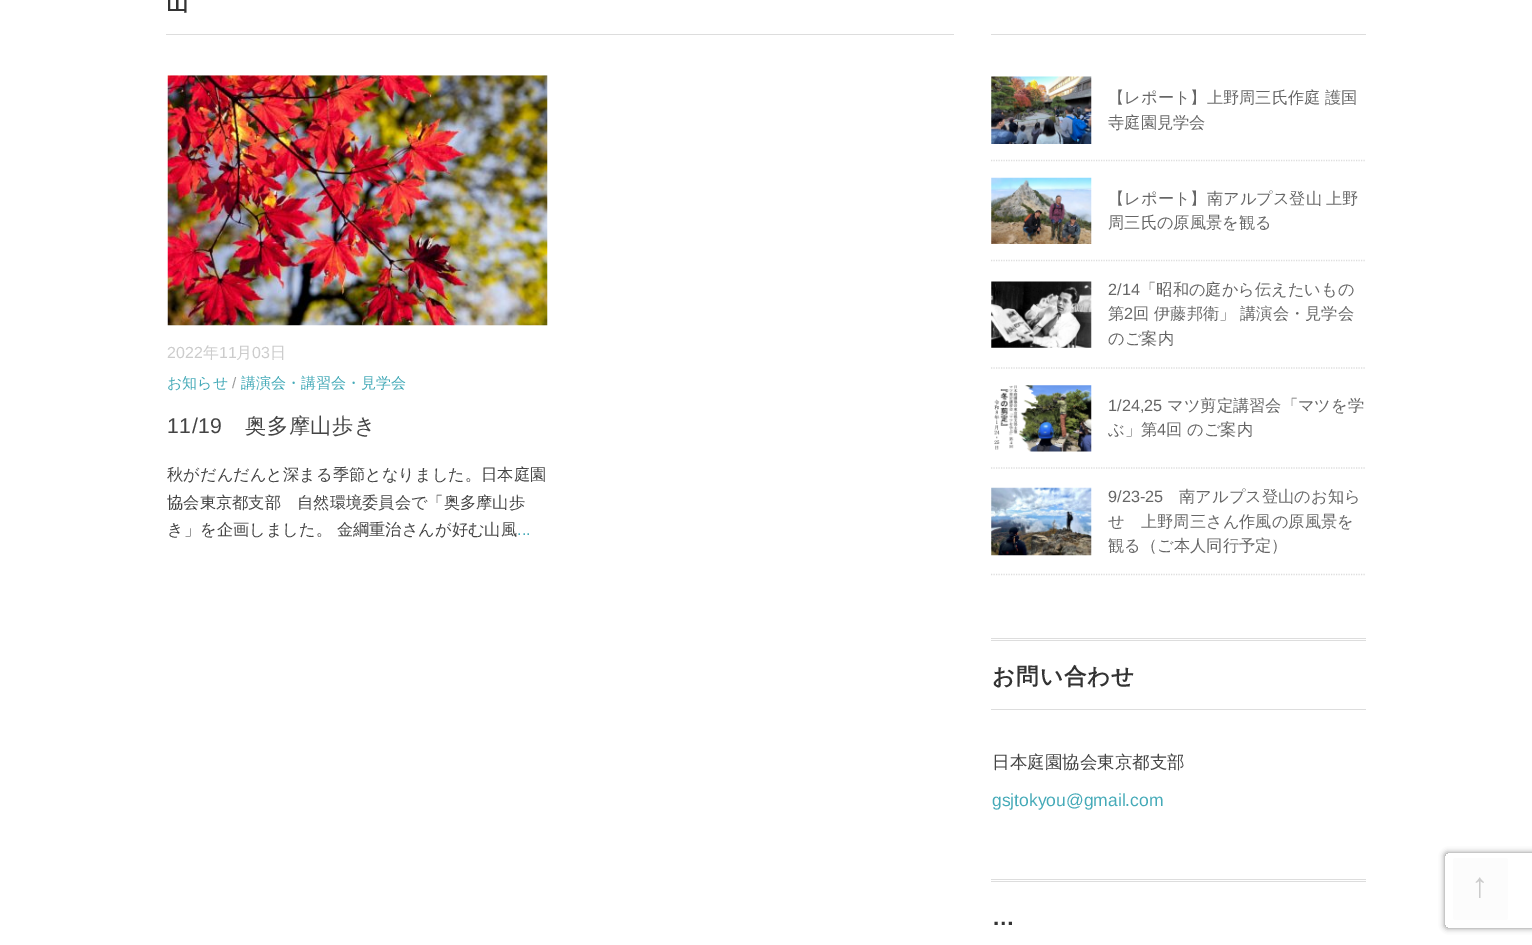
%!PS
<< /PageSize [1532 945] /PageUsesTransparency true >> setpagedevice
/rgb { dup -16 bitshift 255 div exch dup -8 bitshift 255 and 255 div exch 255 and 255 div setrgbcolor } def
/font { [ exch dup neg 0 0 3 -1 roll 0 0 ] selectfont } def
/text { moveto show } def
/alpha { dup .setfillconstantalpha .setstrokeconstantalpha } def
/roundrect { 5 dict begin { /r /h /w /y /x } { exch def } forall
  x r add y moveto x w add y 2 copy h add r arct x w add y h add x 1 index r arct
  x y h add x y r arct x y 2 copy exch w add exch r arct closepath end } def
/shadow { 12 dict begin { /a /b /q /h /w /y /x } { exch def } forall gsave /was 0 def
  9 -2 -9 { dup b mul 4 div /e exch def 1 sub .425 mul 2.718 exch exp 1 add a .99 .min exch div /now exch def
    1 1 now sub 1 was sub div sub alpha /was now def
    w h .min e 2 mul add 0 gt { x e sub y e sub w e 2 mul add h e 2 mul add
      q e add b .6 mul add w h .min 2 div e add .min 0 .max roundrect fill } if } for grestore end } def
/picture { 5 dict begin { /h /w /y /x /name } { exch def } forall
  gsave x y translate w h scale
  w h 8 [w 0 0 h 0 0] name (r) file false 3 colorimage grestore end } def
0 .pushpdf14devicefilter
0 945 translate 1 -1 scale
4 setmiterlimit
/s1 { /LiberationSans-Regular 16 font 16#CCCCCC rgb } def
/s2 { /WenQuanYiZenHei-Medium 16 font 16#CCCCCC rgb } def
/s3 { /WenQuanYiZenHei-Medium 15 font 16#45AAB8 rgb } def
/s4 { /LiberationSans-Regular 15 font 16#999999 rgb } def
/s5 { /WenQuanYiZenHei-Medium 16.25 font 16#444444 rgb } def
/s6 { /LiberationSans-Regular 16.25 font 16#45AAB8 rgb } def
/s7 { /WenQuanYiZenHei-Medium 16.25 font 16#666666 rgb } def
/s8 { /LiberationSans-Regular 16.25 font 16#666666 rgb } def
/s9 { /WenQuanYiZenHei-Medium 17.5 font 16#444444 rgb } def
/s10 { /LiberationSans-Regular 17.5 font 16#45AAB8 rgb } def
/s11 { /LiberationSans-Regular 35 font 16#CCCCCC rgb } def
16#FFFFFF rgb
0 0 1532 945 rectfill
16#DDDDDD rgb
166 34 788 1 rectfill
/WenQuanYiZenHei-Bold 22.5 font
16#333333 rgb
166 10 moveto 1 0 (山) ashow
(pic1.raw) 167 75 381 251 picture
s1
(2022) 167 358 text
s2
(年) 203 358 text
s1
(11) 219 358 text
s2
(月) 236 358 text
s1
(03) 252 358 text
s2
(日) 270 358 text
s3
(お知らせ) 167 388 text
s4
(/) 232 388 text
s3
(講演会・講習会・見学会) 241 388 text
/LiberationSans-Regular 21.25 font
16#444444 rgb
167 433 moveto 0.5 0 (11/19) ashow
/WenQuanYiZenHei-Medium 21.25 font
245 433 moveto 0.5 0 (奥多摩山歩き) ashow
s5
(秋がだんだんと深まる季節となりました。日本庭園) 167 480 text
(協会東京都支部　自然環境委員会で「奥多摩山歩) 167 508 text
(き」を企画しました。 金綱重治さんが好む山風) 167 535 text
s6
(...) 517 535 text
16#DDDDDD rgb
991 34 375 1 rectfill
1.2 setlinewidth
[1.25 1.25] 0 setdash
991 160.5 moveto 1366 160.5 lineto stroke
(pic2.raw) 991 76 101 68 picture
s7
(【レポート】上野周三氏作庭) 1108 103 text
(護国) 1325 103 text
(寺庭園見学会) 1108 128 text
16#DDDDDD rgb
991 260.5 moveto 1366 260.5 lineto stroke
(pic3.raw) 991 177 101 67 picture
s7
(【レポート】南アルプス登山) 1108 204 text
(上野) 1326 204 text
(周三氏の原風景を観る) 1108 228 text
16#DDDDDD rgb
991 368 moveto 1366 368 lineto stroke
(pic4.raw) 991 281 101 67 picture
s8
(2/14) 1108 295 text
s7
(「昭和の庭から伝えたいもの) 1140 295 text
(第) 1108 319 text
s8
(2) 1124 319 text
s7
(回 伊藤邦衛」 講演会・見学会) 1133 319 text
(のご案内) 1108 344 text
16#DDDDDD rgb
991 468 moveto 1366 468 lineto stroke
(pic5.raw) 994 385 98 67 picture
s8
(1/24,25) 1108 411 text
s7
(マツ剪定講習会「マツを学) 1167 411 text
(ぶ」第) 1108 435 text
s8
(4) 1157 435 text
s7
(回 のご案内) 1166 435 text
16#DDDDDD rgb
991 574.5 moveto 1366 574.5 lineto stroke
(pic6.raw) 991 487 101 69 picture
s8
(9/23-25) 1108 502 text
s7
(南アルプス登山のお知ら) 1179 502 text
(せ　上野周三さん作風の原風景を) 1108 527 text
(観る（ご本人同行予定）) 1108 551 text
16#DDDDDD rgb
991 638 375 1 rectfill
991 640 375 1 rectfill
991 709 375 1 rectfill
/WenQuanYiZenHei-Bold 22.5 font
16#333333 rgb
992 684 moveto 1 0 (お問い合わせ) ashow
s9
(日本庭園協会東京都支部) 992 768 text
s10
(gsjtokyou@gmail.com) 992 806 text
16#DDDDDD rgb
991 879 375 1 rectfill
991 881 375 1 rectfill
/LiberationSans-Bold 22.5 font
16#333333 rgb
992 925 moveto 1 0 (…) ashow
16#FCFCFC rgb
1453 858 55 62 2.5 roundrect fill
gsave
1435 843 moveto 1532 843 lineto 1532 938 lineto 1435 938 lineto closepath 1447.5 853 moveto 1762.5 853 lineto 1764 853 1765 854 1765 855.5 curveto 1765 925.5 lineto 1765 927 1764 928 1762.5 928 curveto 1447.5 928 lineto 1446 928 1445 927 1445 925.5 curveto 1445 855.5 lineto 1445 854 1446 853 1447.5 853 curveto closepath eoclip newpath
16#808080 rgb
1445 853 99 75 2.5 3 1 shadow
grestore
s11
(↑) 1471 897 text
.poppdf14devicefilter showpage
